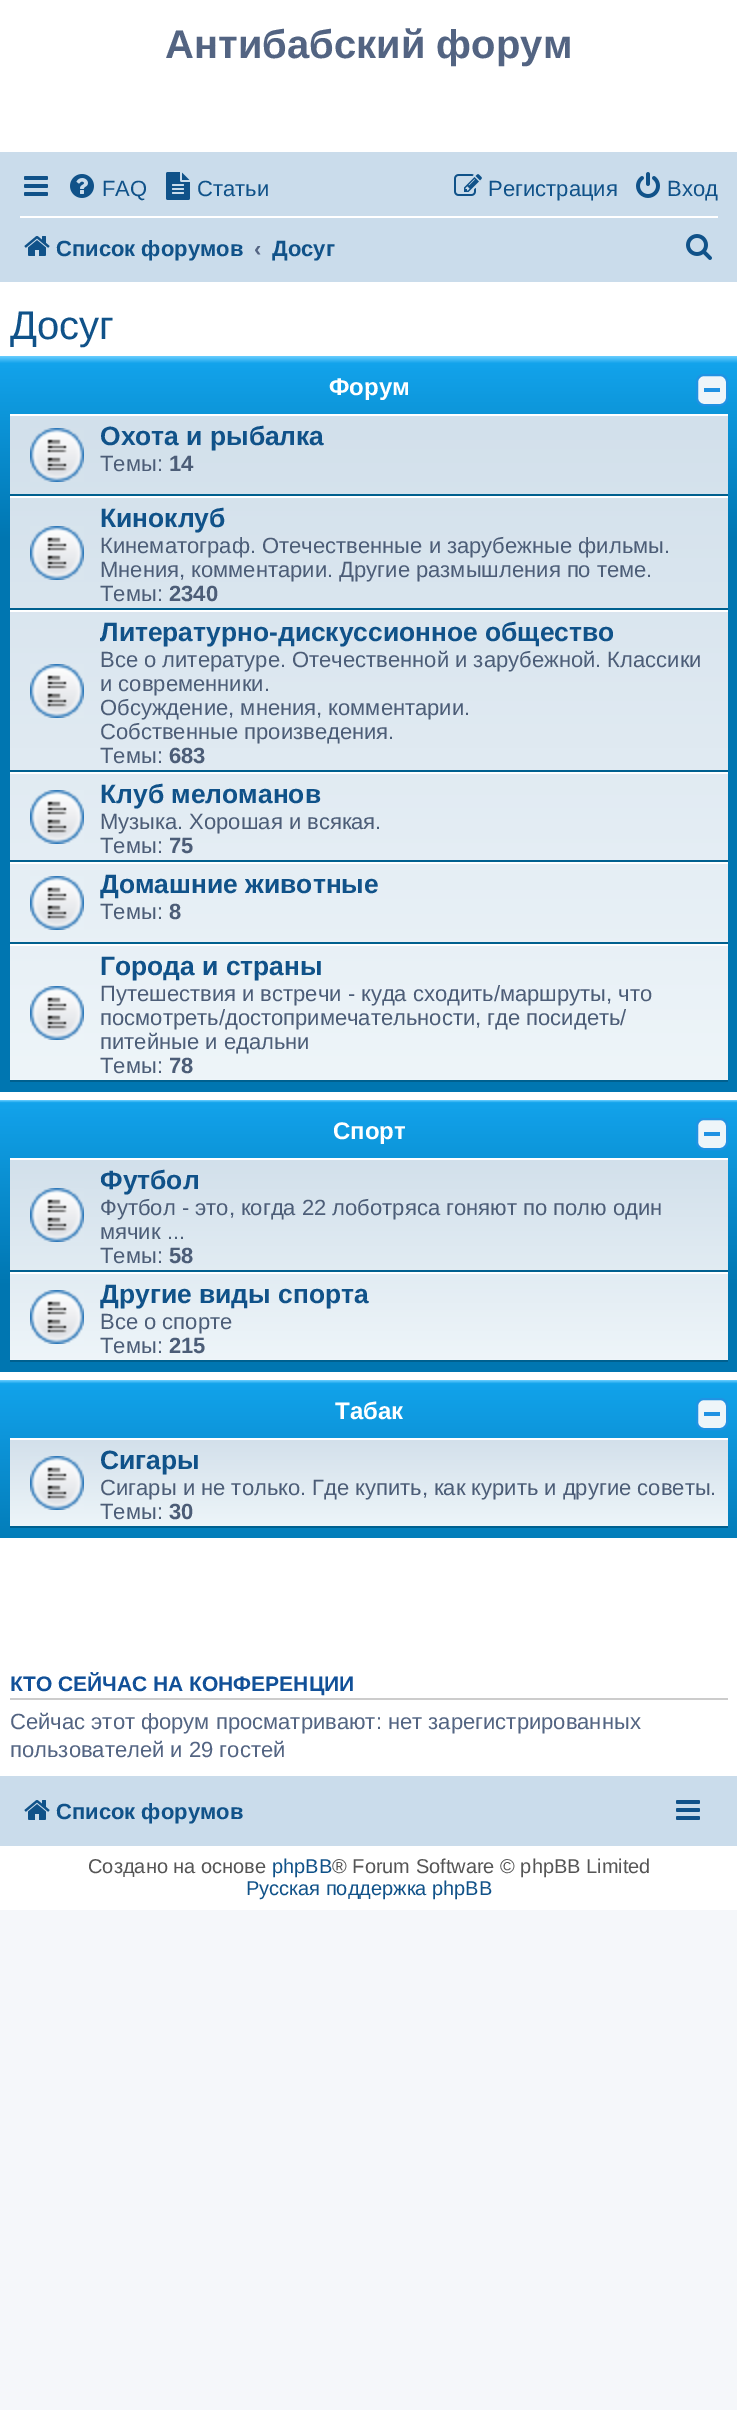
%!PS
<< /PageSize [737 2410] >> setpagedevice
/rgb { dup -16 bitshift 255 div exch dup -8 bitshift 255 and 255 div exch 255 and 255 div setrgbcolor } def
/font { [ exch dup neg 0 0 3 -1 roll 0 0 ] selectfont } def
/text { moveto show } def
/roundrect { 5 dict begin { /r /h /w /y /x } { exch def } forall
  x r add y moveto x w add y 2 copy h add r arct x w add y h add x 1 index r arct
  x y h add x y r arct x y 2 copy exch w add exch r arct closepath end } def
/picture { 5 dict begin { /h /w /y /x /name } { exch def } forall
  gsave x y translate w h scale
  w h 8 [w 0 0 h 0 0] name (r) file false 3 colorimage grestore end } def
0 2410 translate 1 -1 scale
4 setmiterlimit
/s1 { /LiberationSans-Bold 40 font 16#536482 rgb } def
/s2 { /LiberationSans-Regular 22 font 16#105289 rgb } def
/s3 { /LiberationSans-Bold 22 font 16#105289 rgb } def
/s4 { /LiberationSans-Bold 22 font 16#536482 rgb } def
/s5 { /LiberationSans-Regular 40 font 16#105289 rgb } def
/s6 { /LiberationSans-Bold 24 font 16#FFFFFF rgb } def
/s7 { /LiberationSans-Bold 26.4 font 16#105289 rgb } def
/s8 { /LiberationSans-Regular 22 font 16#4C5D77 rgb } def
/s9 { /LiberationSans-Bold 22 font 16#4C5D77 rgb } def
/s10 { /LiberationSans-Bold 21 font 16#115098 rgb } def
/s11 { /LiberationSans-Regular 22 font 16#536482 rgb } def
/s12 { /LiberationSans-Regular 20 font 16#555555 rgb } def
/s13 { /LiberationSans-Regular 20 font 16#105289 rgb } def
16#F5F7FA rgb
0 0 737 2410 rectfill
16#FFFFFF rgb
0 0 737 1910 rectfill
s1
(Антибабский форум) 165 58 text
16#CADCEB rgb
0 152 737 130 rectfill
(pic1.raw) 24 176 24 20 picture
(pic2.raw) 70 174 24 24 picture
s2
(FAQ) 102 196 text
(pic3.raw) 166 172 24 28 picture
(Статьи) 197 196 text
(pic4.raw) 454 174 28 22 picture
(Регистрация) 488 196 text
(pic5.raw) 636 172 24 26 picture
(Вход) 667 196 text
16#FFFFFF rgb
20 216 698 2 rectfill
(pic6.raw) 24 236 26 20 picture
s3
(Список форумов) 56 256 text
s4
(‹) 254 256 text
s3
(Досуг) 272 256 text
(pic7.raw) 686 234 26 26 picture
s5
(Досуг) 10 339 text
gsave 0 356 moveto 737 356 lineto 737 1092 lineto 0 1092 lineto closepath clip newpath
<< /ShadingType 2 /ColorSpace /DeviceRGB /Coords [369 356 369 1092] /Extend [true true] /Function << /FunctionType 3 /Domain [0 1] /Functions [<< /FunctionType 2 /Domain [0 1] /C0 [0.416 0.808 1] /C1 [0.071 0.639 0.922] /N 1 >> << /FunctionType 2 /Domain [0 1] /C0 [0.071 0.639 0.922] /C1 [0 0.463 0.694] /N 1 >> << /FunctionType 2 /Domain [0 1] /C0 [0 0.463 0.694] /C1 [0 0.463 0.694] /N 1 >>] /Bounds [0.01 0.25] /Encode [0 1 0 1 0 1] >> >> shfill grestore
s6
(Форум) 329 395 text
16#EEF5F9 rgb
697 375 30 30 7 roundrect gsave fill grestore
16#2092E3 rgb
2 setlinewidth
stroke
704 388 16 4 rectfill
gsave 10 416 moveto 728 416 lineto 728 1080 lineto 10 1080 lineto closepath clip newpath
<< /ShadingType 2 /ColorSpace /DeviceRGB /Coords [369 414 369 1082] /Extend [true true] /Function << /FunctionType 2 /Domain [0 1] /C0 [0.824 0.878 0.922] /C1 [0.933 0.961 0.976] /N 1 >> >> shfill grestore
16#FFFFFF rgb
10 414 718 2 rectfill
16#00608F rgb
10 494 718 2 rectfill
(pic8.raw) 30 428 54 54 picture
s7
(Охота и рыбалка) 100 445 text
s8
(Темы:) 100 471 text
s9
(14) 169 471 text
16#FFFFFF rgb
10 496 718 2 rectfill
16#00608F rgb
10 608 718 2 rectfill
(pic9.raw) 30 526 54 54 picture
s7
(Киноклуб) 100 527 text
s8
(Кинематограф. Отечественные и зарубежные фильмы.) 100 553 text
(Мнения, комментарии. Другие размышления по теме.) 100 577 text
(Темы:) 100 601 text
s9
(2340) 169 601 text
16#FFFFFF rgb
10 610 718 2 rectfill
16#00608F rgb
10 770 718 2 rectfill
(pic10.raw) 30 664 54 54 picture
s7
(Литературно-дискуссионное общество) 100 641 text
s8
(Все о литературе. Отечественной и зарубежной. Классики) 100 667 text
(и современники.) 100 691 text
(Обсуждение, мнения, комментарии.) 100 715 text
(Собственные произведения.) 100 739 text
(Темы:) 100 763 text
s9
(683) 169 763 text
16#FFFFFF rgb
10 772 718 2 rectfill
16#00608F rgb
10 860 718 2 rectfill
(pic11.raw) 30 790 54 54 picture
s7
(Клуб меломанов) 100 803 text
s8
(Музыка. Хорошая и всякая.) 100 829 text
(Темы:) 100 853 text
s9
(75) 169 853 text
16#FFFFFF rgb
10 862 718 2 rectfill
16#00608F rgb
10 942 718 2 rectfill
(pic12.raw) 30 876 54 54 picture
s7
(Домашние животные) 100 893 text
s8
(Темы:) 100 919 text
s9
(8) 169 919 text
16#FFFFFF rgb
10 944 718 2 rectfill
16#00608F rgb
10 1080 718 2 rectfill
(pic13.raw) 30 986 54 54 picture
s7
(Города и страны) 100 975 text
s8
(Путешествия и встречи - куда сходить/маршруты, что) 100 1001 text
(посмотреть/достопримечательности, где посидеть/) 100 1025 text
(питейные и едальни) 100 1049 text
(Темы:) 100 1073 text
s9
(78) 169 1073 text
gsave 0 1100 moveto 737 1100 lineto 737 1372 lineto 0 1372 lineto closepath clip newpath
<< /ShadingType 2 /ColorSpace /DeviceRGB /Coords [369 1100 369 1372] /Extend [true true] /Function << /FunctionType 3 /Domain [0 1] /Functions [<< /FunctionType 2 /Domain [0 1] /C0 [0.416 0.808 1] /C1 [0.071 0.639 0.922] /N 1 >> << /FunctionType 2 /Domain [0 1] /C0 [0.071 0.639 0.922] /C1 [0 0.463 0.694] /N 1 >> << /FunctionType 2 /Domain [0 1] /C0 [0 0.463 0.694] /C1 [0 0.463 0.694] /N 1 >>] /Bounds [0.01 0.68] /Encode [0 1 0 1 0 1] >> >> shfill grestore
s6
(Спорт) 333 1139 text
16#EEF5F9 rgb
697 1119 30 30 7 roundrect gsave fill grestore
16#2092E3 rgb
stroke
704 1132 16 4 rectfill
gsave 10 1160 moveto 728 1160 lineto 728 1360 lineto 10 1360 lineto closepath clip newpath
<< /ShadingType 2 /ColorSpace /DeviceRGB /Coords [369 1158 369 1362] /Extend [true true] /Function << /FunctionType 2 /Domain [0 1] /C0 [0.824 0.878 0.922] /C1 [0.933 0.961 0.976] /N 1 >> >> shfill grestore
16#FFFFFF rgb
10 1158 718 2 rectfill
16#00608F rgb
10 1270 718 2 rectfill
(pic14.raw) 30 1188 54 54 picture
s7
(Футбол) 100 1189 text
s8
(Футбол - это, когда 22 лоботряса гоняют по полю один) 100 1215 text
(мячик ...) 100 1239 text
(Темы:) 100 1263 text
s9
(58) 169 1263 text
16#FFFFFF rgb
10 1272 718 2 rectfill
16#00608F rgb
10 1360 718 2 rectfill
(pic15.raw) 30 1290 54 54 picture
s7
(Другие виды спорта) 100 1303 text
s8
(Все о спорте) 100 1329 text
(Темы:) 100 1353 text
s9
(215) 169 1353 text
gsave 0 1380 moveto 737 1380 lineto 737 1538 lineto 0 1538 lineto closepath clip newpath
<< /ShadingType 2 /ColorSpace /DeviceRGB /Coords [369 1380 369 1564] /Extend [true true] /Function << /FunctionType 3 /Domain [0 1] /Functions [<< /FunctionType 2 /Domain [0 1] /C0 [0.416 0.808 1] /C1 [0.071 0.639 0.922] /N 1 >> << /FunctionType 2 /Domain [0 1] /C0 [0.071 0.639 0.922] /C1 [0 0.463 0.694] /N 1 >>] /Bounds [0.02] /Encode [0 1 0 1] >> >> shfill grestore
s6
(Табак) 335 1419 text
16#EEF5F9 rgb
697 1399 30 30 7 roundrect gsave fill grestore
16#2092E3 rgb
stroke
704 1412 16 4 rectfill
gsave 10 1440 moveto 728 1440 lineto 728 1526 lineto 10 1526 lineto closepath clip newpath
<< /ShadingType 2 /ColorSpace /DeviceRGB /Coords [369 1438 369 1528] /Extend [true true] /Function << /FunctionType 2 /Domain [0 1] /C0 [0.824 0.878 0.922] /C1 [0.933 0.961 0.976] /N 1 >> >> shfill grestore
16#FFFFFF rgb
10 1438 718 2 rectfill
16#00608F rgb
10 1526 718 2 rectfill
(pic16.raw) 30 1456 54 54 picture
s7
(Сигары) 100 1469 text
s8
(Сигары и не только. Где купить, как курить и другие советы.) 100 1495 text
(Темы:) 100 1519 text
s9
(30) 169 1519 text
16#CCCCCC rgb
10 1698 718 2 rectfill
s10
(КТО СЕЙЧАС НА КОНФЕРЕНЦИИ) 10 1691 text
s11
(Сейчас этот форум просматривают: нет зарегистрированных) 10 1729 text
(пользователей и 29 гостей) 10 1757 text
16#CADCEB rgb
0 1776 737 70 rectfill
(pic6.raw) 24 1800 26 20 picture
s3
(Список форумов) 56 1819 text
(pic1.raw) 676 1800 24 20 picture
s12
(Создано на основе) 88 1873 text
s13
(phpBB) 272 1873 text
s12
(® Forum Software © phpBB Limited) 332 1873 text
s13
(Русская поддержка phpBB) 246 1895 text
showpage
